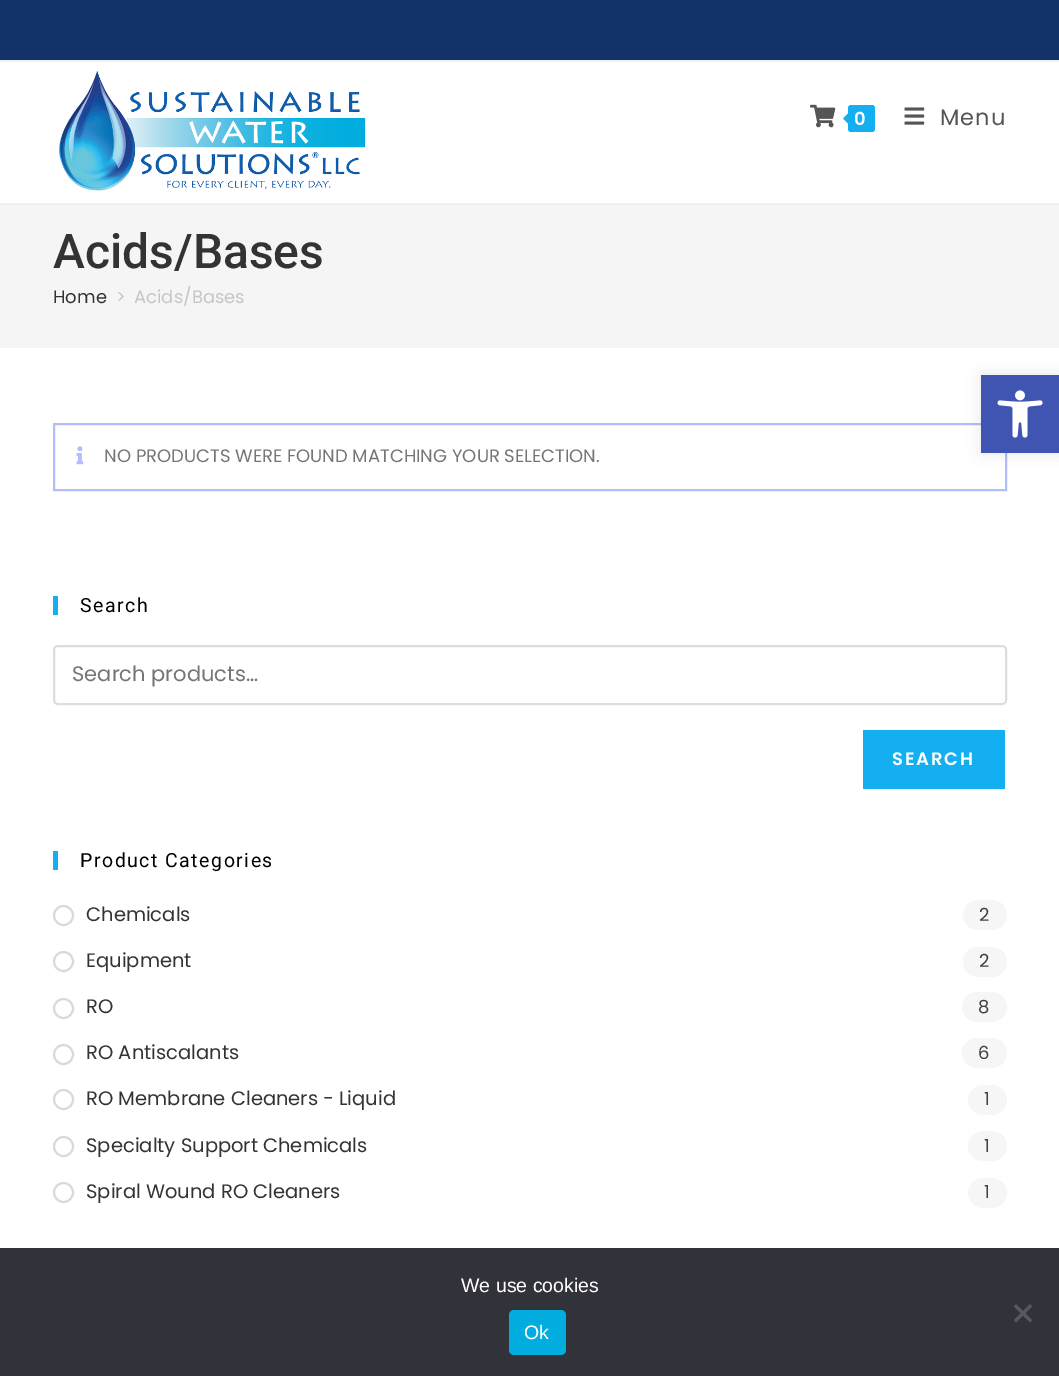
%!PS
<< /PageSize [1059 1376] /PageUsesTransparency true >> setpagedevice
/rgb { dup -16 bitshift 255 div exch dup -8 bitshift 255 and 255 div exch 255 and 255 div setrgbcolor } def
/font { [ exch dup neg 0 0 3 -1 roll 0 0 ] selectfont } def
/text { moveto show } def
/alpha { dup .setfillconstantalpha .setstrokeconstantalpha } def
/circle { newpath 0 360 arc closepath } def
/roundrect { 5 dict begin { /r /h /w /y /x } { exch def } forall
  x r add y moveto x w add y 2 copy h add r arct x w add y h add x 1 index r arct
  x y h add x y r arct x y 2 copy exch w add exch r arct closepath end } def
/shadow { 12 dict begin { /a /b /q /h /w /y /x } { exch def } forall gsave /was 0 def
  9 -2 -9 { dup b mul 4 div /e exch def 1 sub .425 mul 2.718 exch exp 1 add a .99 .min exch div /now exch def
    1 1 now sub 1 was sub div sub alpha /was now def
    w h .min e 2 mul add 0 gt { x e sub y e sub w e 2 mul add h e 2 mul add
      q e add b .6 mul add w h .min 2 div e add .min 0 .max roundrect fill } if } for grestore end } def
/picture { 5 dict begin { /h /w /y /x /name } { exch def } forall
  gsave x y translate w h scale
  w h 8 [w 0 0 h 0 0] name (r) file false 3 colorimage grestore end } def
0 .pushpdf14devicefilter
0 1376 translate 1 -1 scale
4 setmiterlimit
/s1 { /Roboto-Medium 48 font 16#333333 rgb } def
/s2 { /Poppins-Regular 18 font 16#333333 rgb } def
/s3 { /Poppins-Regular 18 font 16#C6C6C6 rgb } def
/s4 { /Poppins-Regular 18 font 16#757575 rgb } def
/s5 { /Poppins-Regular 21 font 16#757575 rgb } def
/s6 { /Poppins-Regular 19.5 font 16#333333 rgb } def
/s7 { /Poppins-Regular 18 font 16#3F3F3F rgb } def
/s8 { /LiberationSans-Regular 19.5 font 16#FFFFFF rgb } def
16#FFFFFF rgb
0 0 1059 1376 rectfill
16#11336A rgb
0 0 1059 60 rectfill
16#F1F1F1 rgb
0 60 1059 2 rectfill
0 203 1059 2 rectfill
(pic1.raw) 59 71 307 120 picture
(pic2.raw) 810 104 26 24 picture
16#13AFF0 rgb
848 105 27 27 3 roundrect fill
850.5 111 moveto 850.5 126 lineto 843 118.5 lineto closepath fill
/Poppins-SemiBold 18 font
16#FFFFFF rgb
854 125 moveto 1 0 (0) ashow
(pic3.raw) 904 107 21 18 picture
/Poppins-Regular 22.5 font
16#555555 rgb
940 125 moveto 1 0 (Menu) ashow
16#F5F5F5 rgb
0 205 1059 143 rectfill
s1
(Acids/Bases) 53 268 text
s2
(Home) 53 303 text
s3
(>) 116 303 text
(Acids/Bases) 134 303 text
16#B1BEFD rgb
2 setlinewidth
54 424 952 66 rectstroke
(pic4.raw) 76 446 8 19 picture
s4
(NO PRODUCTS WERE FOUND MATCHING YOUR SELECTION.) 104 462 text
16#13AFF0 rgb
53 596 5 19 rectfill
/Roboto-Regular 19.5 font
16#000000 rgb
80 612 moveto 1.5 0 (Search) ashow
16#DDDDDD rgb
54 646 952 58 4 roundrect stroke
s5
(Search products…) 72 681 text
16#13AFF0 rgb
863 730 142 59 rectfill
/Poppins-SemiBold 18 font
16#FFFFFF rgb
892 765 moveto 1.75 0 (SEARCH) ashow
16#13AFF0 rgb
53 851 5 19 rectfill
/Roboto-Regular 19.5 font
16#000000 rgb
80 867 moveto 1.5 0 (Product Categories) ashow
16#D9D9D9 rgb
63.5 915.5 9.5 circle stroke
s6
(Chemicals) 86 921 text
16#F6F6F6 rgb
963 900 44 30 15 roundrect fill
s7
(2) 979 921 text
16#D9D9D9 rgb
63.5 961.5 9.5 circle stroke
s6
(Equipment) 86 967 text
16#F6F6F6 rgb
963 947 44 30 15 roundrect fill
s7
(2) 979 967 text
16#D9D9D9 rgb
63.5 1008.5 9.5 circle stroke
s6
(RO) 86 1013 text
16#F6F6F6 rgb
962 992 45 30 15 roundrect fill
s7
(8) 978 1013 text
16#D9D9D9 rgb
63.5 1054.5 9.5 circle stroke
s6
(RO Antiscalants) 86 1059 text
16#F6F6F6 rgb
962 1038 45 30 15 roundrect fill
s7
(6) 978 1059 text
16#D9D9D9 rgb
63.5 1099.5 9.5 circle stroke
s6
(RO Membrane Cleaners - Liquid) 86 1105 text
16#F6F6F6 rgb
968 1085 39 30 15 roundrect fill
s7
(1) 984 1105 text
16#D9D9D9 rgb
63.5 1146.5 9.5 circle stroke
s6
(Specialty Support Chemicals) 86 1152 text
16#F6F6F6 rgb
968 1131 39 30 15 roundrect fill
s7
(1) 984 1152 text
16#D9D9D9 rgb
63.5 1192.5 9.5 circle stroke
s6
(Spiral Wound RO Cleaners) 86 1198 text
16#F6F6F6 rgb
968 1178 39 30 15 roundrect fill
s7
(1) 984 1198 text
16#000000 rgb
981 375 78 78 0 7.5 0.1 shadow
16#4054B2 rgb
981 375 78 78 rectfill
(pic5.raw) 997 390 46 48 picture
16#32323A rgb
0 1248 1059 128 rectfill
s8
(We use cookies) 461 1292 text
16#59595D rgb
1030 1304 moveto 1032 1306.5 lineto 1016 1322.5 lineto 1014 1320 lineto closepath fill
1014 1306.5 moveto 1016 1304 lineto 1032 1320 lineto 1030 1322.5 lineto closepath fill
16#00ADDE rgb
509 1310 57 45 5 roundrect fill
s8
(Ok) 524 1339 text
.poppdf14devicefilter showpage
